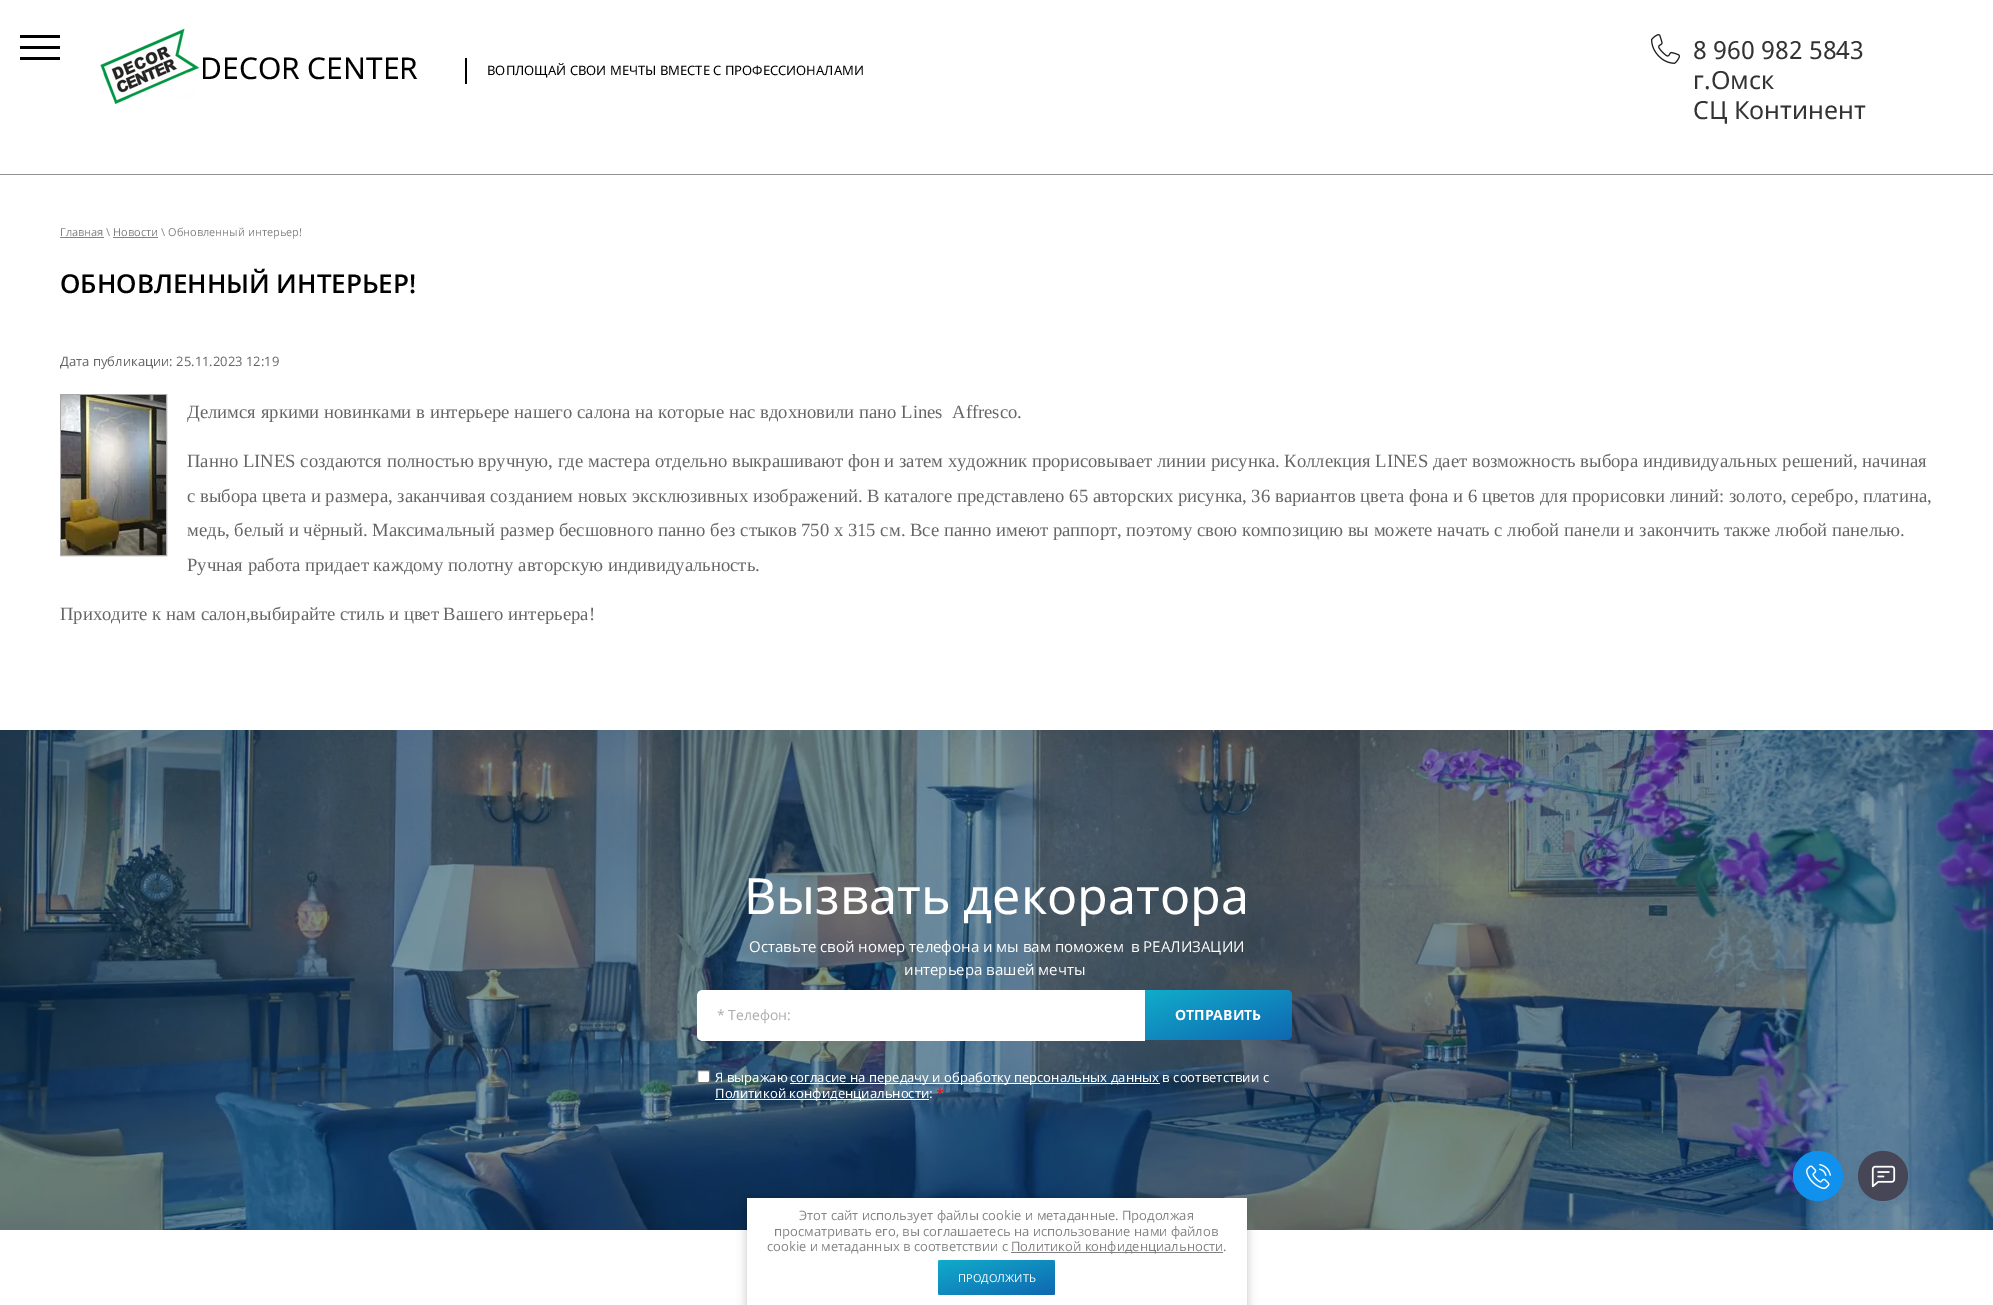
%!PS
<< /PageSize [1993 1305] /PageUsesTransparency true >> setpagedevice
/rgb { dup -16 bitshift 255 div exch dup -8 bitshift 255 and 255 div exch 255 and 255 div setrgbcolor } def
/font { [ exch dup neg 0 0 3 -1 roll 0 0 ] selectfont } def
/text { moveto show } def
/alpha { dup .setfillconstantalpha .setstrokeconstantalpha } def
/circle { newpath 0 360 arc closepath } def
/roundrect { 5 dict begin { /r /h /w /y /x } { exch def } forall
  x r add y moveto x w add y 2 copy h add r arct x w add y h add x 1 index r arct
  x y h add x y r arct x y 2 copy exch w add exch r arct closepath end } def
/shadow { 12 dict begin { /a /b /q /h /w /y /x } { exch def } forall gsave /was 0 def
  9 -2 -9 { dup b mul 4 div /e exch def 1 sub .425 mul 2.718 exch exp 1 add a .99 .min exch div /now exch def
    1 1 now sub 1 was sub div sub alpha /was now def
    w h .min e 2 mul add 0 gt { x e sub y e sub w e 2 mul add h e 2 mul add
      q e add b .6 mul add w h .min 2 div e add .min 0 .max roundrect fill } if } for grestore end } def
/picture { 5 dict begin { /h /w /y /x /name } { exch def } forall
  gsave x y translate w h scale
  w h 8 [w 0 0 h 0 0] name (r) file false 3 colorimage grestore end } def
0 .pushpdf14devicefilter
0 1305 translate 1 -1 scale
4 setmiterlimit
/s1 { /NotoSans-Regular 30 font 16#000000 rgb } def
/s2 { /NotoSans-Regular 13 font 16#000000 rgb } def
/s3 { /NotoSans-Regular 25 font 16#333333 rgb } def
/s4 { /OpenSans-Regular 11 font 16#828282 rgb } def
/s5 { /OpenSans-SemiBold 26 font 16#000000 rgb } def
/s6 { /OpenSans-Regular 13 font 16#666666 rgb } def
/s7 { /LiberationSerif-Regular 18.67 font 16#666666 rgb } def
/s8 { /NotoSans-Regular 50 font 16#FFFFFF rgb } def
/s9 { /OpenSans-Regular 15 font 16#FFFFFF rgb } def
/s10 { /OpenSans-Regular 14 font 16#ABABAB rgb } def
/s11 { /NotoSans-Regular 13 font 16#FFFFFF rgb } def
/s12 { /NotoSans-Regular 13 font 16#FF0000 rgb } def
/s13 { /OpenSans-Bold 14 font 16#FFFFFF rgb } def
/s14 { /OpenSans-Regular 13 font 16#828282 rgb } def
/s15 { /OpenSans-Regular 11 font 16#FFFFFF rgb } def
16#FFFFFF rgb
0 0 1993 1305 rectfill
16#000000 rgb
20 35 40 3 rectfill
20 46 40 3 rectfill
20 57 40 3 rectfill
(pic1.raw) 100 28 100 77 picture
s1
(DECOR CENTER) 200 79 text
465 58 2 26 rectfill
s2
(ВОПЛОЩАЙ СВОИ МЕЧТЫ ВМЕСТЕ С ПРОФЕССИОНАЛАМИ) 487 75 text
(pic2.raw) 1651 34 29 30 picture
s3
(8 960 982 5843) 1693 59 text
(г.Омск) 1693 89 text
(СЦ Континент) 1693 119 text
16#919191 rgb
0 174 1993 1 rectfill
16#828282 rgb
60 237 44 1 rectfill
s4
(Главная \\ Новости \\ Обновленный интерьер!) 60 236 text
113 237 45 1 rectfill
s5
(ОБНОВЛЕННЫЙ ИНТЕРЬЕР!) 60 293 text
s6
(Дата публикации: 25.11.2023 12:19) 60 366 text
16#AAAAAA rgb
60.5 394.5 106 161 rectstroke
(pic3.raw) 61 395 105 160 picture
s7
(Делимся яркими новинками в интерьере нашего салона на которые нас вдохновили пано Lines  Affresco.) 187 418 text
(Панно LINES создаются полностью вручную, где мастера отдельно выкрашивают фон и затем художник прорисовывает линии рисунка. Коллекция LINES дает возможность выбора индивидуальных решений, начиная) 187 467 text
(с выбора цвета и размера, заканчивая созданием новых эксклюзивных изображений. В каталоге представлено 65 авторских рисунка, 36 вариантов цвета фона и 6 цветов для прорисовки линий: золото, серебро, платина,) 187 502 text
(медь, белый и чёрный. Максимальный размер бесшовного панно без стыков 750 х 315 см. Все панно имеют раппорт, поэтому свою композицию вы можете начать с любой панели и закончить также любой панелью.) 187 536 text
(Ручная работа придает каждому полотну авторскую индивидуальность.) 187 571 text
(Приходите к нам салон,выбирайте стиль и цвет Вашего интерьера!) 60 620 text
(pic4.raw) 0 730 1993 500 picture
s8
(Вызвать декоратора) 744 914 text
s9
(Оставьте свой номер телефона и мы вам поможем) 749 952 text
(в РЕАЛИЗАЦИИ) 1131 952 text
(интерьера вашей мечты) 904 975 text
703 990 moveto 1145 990 lineto 1145 1041 lineto 703 1041 lineto 699.5 1041 697 1038.5 697 1035 curveto 697 996 lineto 697 992.5 699.5 990 703 990 curveto closepath fill
s10
(* Телефон:) 717 1020 text
16#FFFFFF rgb
697.5 1070.5 12 12 1.5 roundrect gsave fill grestore
16#767676 rgb
stroke
s11
(Я выражаю) 715 1082 text
790 1083 370 1 rectfill
(согласие на передачу и обработку персональных данных в соответствии с) 790 1082 text
715 1099 214 1 rectfill
(Политикой конфиденциальности:) 715 1098 text
s12
(*) 936 1098 text
16#1091EE rgb
1145 990 moveto 1286 990 lineto 1289.5 990 1292 992.5 1292 996 curveto 1292 1034 lineto 1292 1037.5 1289.5 1040 1286 1040 curveto 1145 1040 lineto closepath fill
0.72 alpha
gsave 1145 990 moveto 1286 990 lineto 1289.5 990 1292 992.5 1292 996 curveto 1292 1034 lineto 1292 1037.5 1289.5 1040 1286 1040 curveto 1145 1040 lineto closepath clip newpath
<< /ShadingType 2 /ColorSpace /DeviceRGB /Coords [1203 970 1234 1060] /Extend [true true] /Function << /FunctionType 2 /Domain [0 1] /C0 [0.067 0.718 0.741] /C1 [0.059 0.337 0.6] /N 1 >> >> shfill grestore
1 alpha
s13
(ОТПРАВИТЬ) 1175 1020 text
16#1091EE rgb
1818 1176 25 circle fill
(pic5.raw) 1806 1164 25 25 picture
16#464657 rgb
1883 1176 25 circle fill
(pic6.raw) 1871 1165 25 23 picture
16#000000 rgb
747 1199 500 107 0 5 0.23 shadow
16#FFFFFF rgb
747 1198 500 107 rectfill
s14
(Этот сайт использует файлы cookie и метаданные. Продолжая) 799 1220 text
(просматривать его, вы соглашаетесь на использование нами файлов) 774 1236 text
(cookie и метаданных в соответствии с) 767 1251 text
16#808080 rgb
1011 1252 212 1 rectfill
s14
(Политикой конфиденциальности.) 1011 1251 text
16#1091EE rgb
938 1260 117 35 3 roundrect fill
0.72 alpha
gsave 938 1260 117 35 3 roundrect clip newpath
<< /ShadingType 2 /ColorSpace /DeviceRGB /Coords [987 1245 1006 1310] /Extend [true true] /Function << /FunctionType 2 /Domain [0 1] /C0 [0.067 0.718 0.741] /C1 [0.059 0.337 0.6] /N 1 >> >> shfill grestore
1 alpha
s15
(ПРОДОЛЖИТЬ) 958 1282 text
.poppdf14devicefilter showpage
